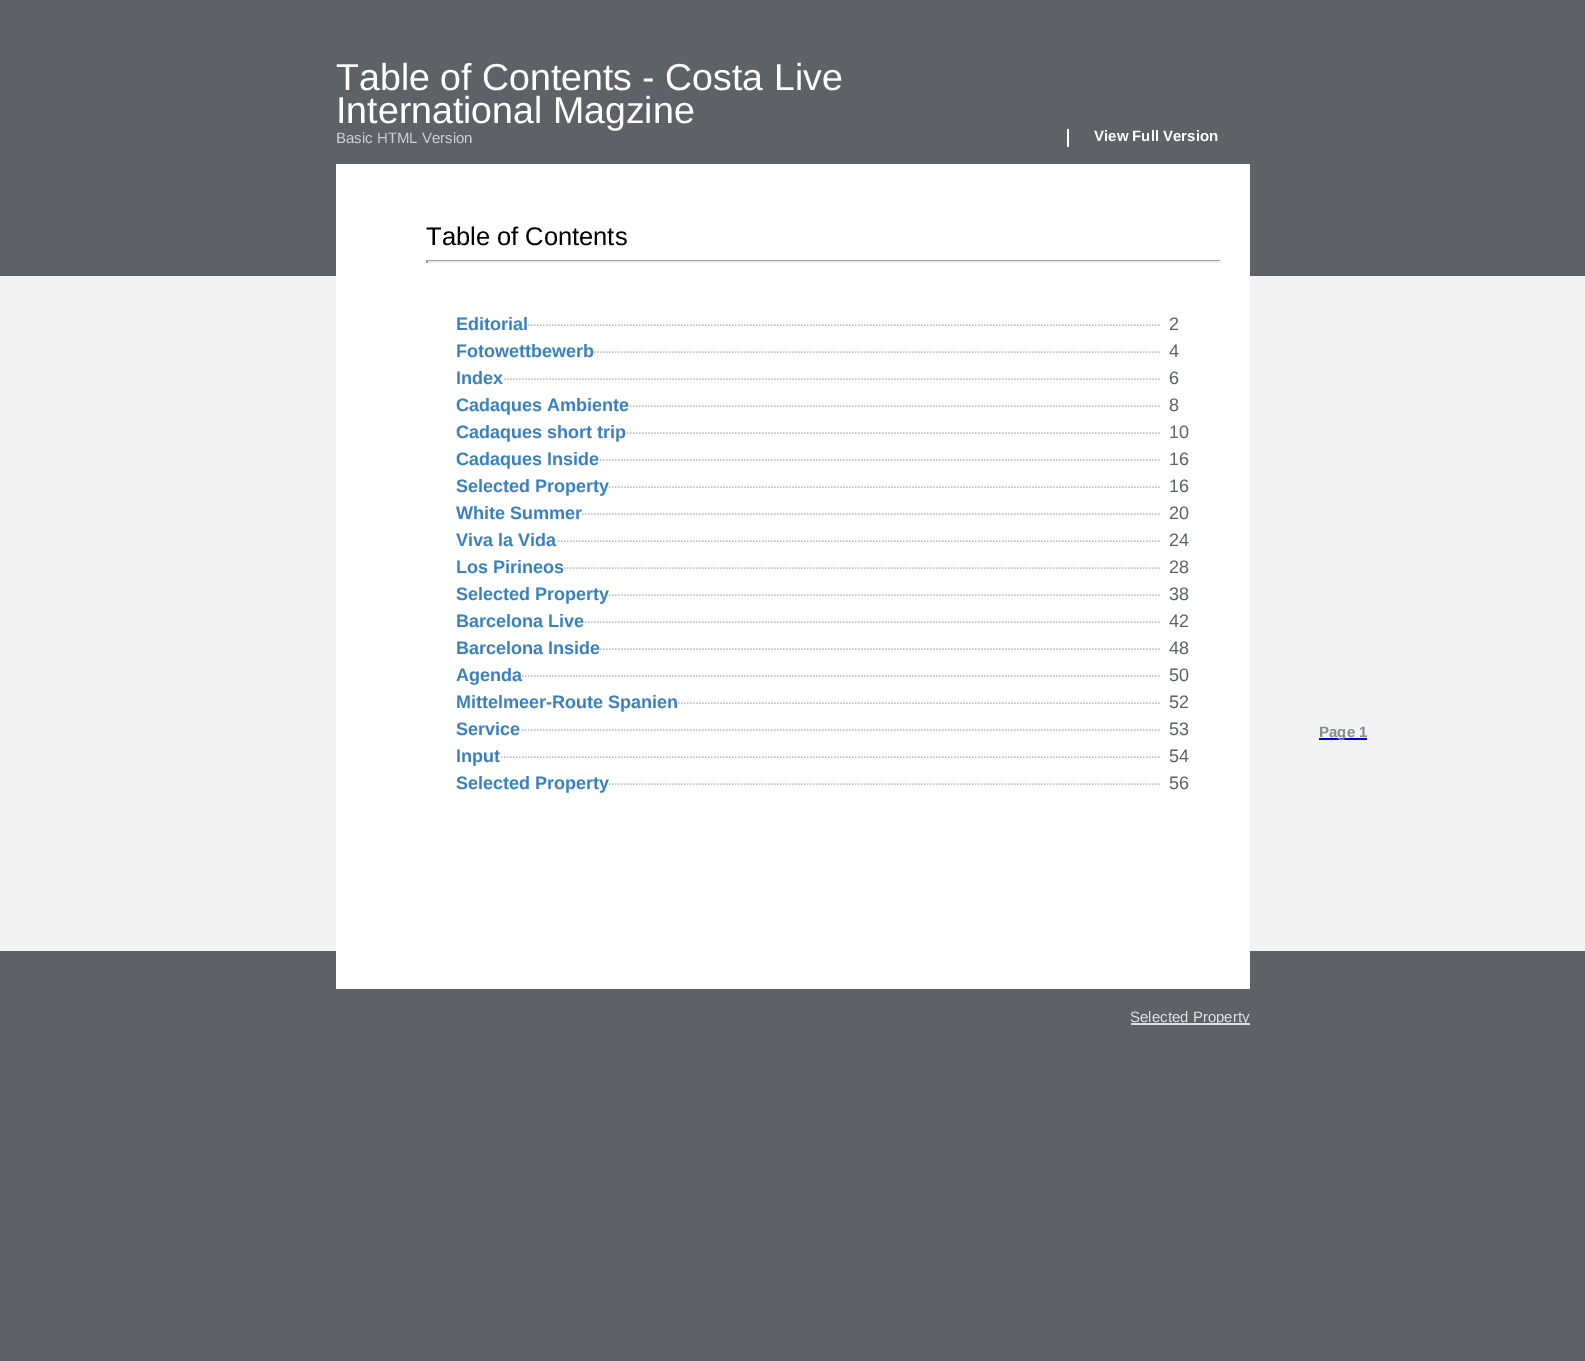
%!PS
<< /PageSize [1585 1361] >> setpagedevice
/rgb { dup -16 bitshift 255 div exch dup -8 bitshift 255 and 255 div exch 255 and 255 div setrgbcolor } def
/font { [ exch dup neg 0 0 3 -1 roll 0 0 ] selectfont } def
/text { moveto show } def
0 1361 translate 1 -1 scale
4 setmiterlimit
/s1 { /LiberationSans-Regular 37.5 font 16#FFFFFF rgb } def
/s2 { /LiberationSans-Regular 15 font 16#D0D0D0 rgb } def
/s3 { /LiberationSans-Bold 15 font 16#FFFFFF rgb } def
/s4 { /LiberationSans-Regular 25.5 font 16#000000 rgb } def
/s5 { /LiberationSans-Bold 18 font 16#3780C1 rgb } def
/s6 { /LiberationSans-Regular 18 font 16#5E6166 rgb } def
/s7 { /LiberationSans-Bold 15 font 16#898B8F rgb } def
/s8 { /LiberationSans-Regular 15 font 16#E0E0E0 rgb } def
16#5E6166 rgb
0 0 1585 1361 rectfill
s1
(Table of Contents - Costa Live) 336 90 text
(International Magzine) 336 123 text
16#F3F3F3 rgb
0 276 1585 675 rectfill
16#FFFFFF rgb
336 164 914 825 rectfill
s2
(Basic HTML Version) 336 143 text
16#FFFFFF rgb
1067 129 2 18 rectfill
s3
(View Full Version) 1094 141 text
s4
(Table of Contents) 426 245 text
16#9F9F9F rgb
426 260 795 1 rectfill
16#EEEEEE rgb
1220 260 2 3 rectfill
426 261 795 2 rectfill
16#9F9F9F rgb
426 260 2 3 rectfill
16#C0C0C0 rgb
1.5 setlinewidth
[1.5 1.5] 0 setdash
456 325 moveto 1221 325 lineto stroke
16#FFFFFF rgb
456 324 71 2 rectfill
s5
(Editorial) 456 330 text
16#FFFFFF rgb
1161 324 59 2 rectfill
s6
(2) 1169 330 text
16#C0C0C0 rgb
456 352 moveto 1221 352 lineto stroke
16#FFFFFF rgb
456 351 137 2 rectfill
s5
(Fotowettbewerb) 456 357 text
16#FFFFFF rgb
1161 351 59 2 rectfill
s6
(4) 1169 357 text
16#C0C0C0 rgb
456 379 moveto 1221 379 lineto stroke
16#FFFFFF rgb
456 378 47 2 rectfill
s5
(Index) 456 384 text
16#FFFFFF rgb
1161 378 59 2 rectfill
s6
(6) 1169 384 text
16#C0C0C0 rgb
456 406 moveto 1221 406 lineto stroke
16#FFFFFF rgb
456 405 173 2 rectfill
s5
(Cadaques Ambiente) 456 411 text
16#FFFFFF rgb
1161 405 59 2 rectfill
s6
(8) 1169 411 text
16#C0C0C0 rgb
456 433 moveto 1221 433 lineto stroke
16#FFFFFF rgb
456 432 170 2 rectfill
s5
(Cadaques short trip) 456 438 text
16#FFFFFF rgb
1161 432 59 2 rectfill
s6
(10) 1169 438 text
16#C0C0C0 rgb
456 460 moveto 1221 460 lineto stroke
16#FFFFFF rgb
456 459 143 2 rectfill
s5
(Cadaques Inside) 456 465 text
16#FFFFFF rgb
1161 459 59 2 rectfill
s6
(16) 1169 465 text
16#C0C0C0 rgb
456 487 moveto 1221 487 lineto stroke
16#FFFFFF rgb
456 486 152 2 rectfill
s5
(Selected Property) 456 492 text
16#FFFFFF rgb
1161 486 59 2 rectfill
s6
(16) 1169 492 text
16#C0C0C0 rgb
456 514 moveto 1221 514 lineto stroke
16#FFFFFF rgb
456 513 125 2 rectfill
s5
(White Summer) 456 519 text
16#FFFFFF rgb
1161 513 59 2 rectfill
s6
(20) 1169 519 text
16#C0C0C0 rgb
456 541 moveto 1221 541 lineto stroke
16#FFFFFF rgb
456 540 101 2 rectfill
s5
(Viva la Vida) 456 546 text
16#FFFFFF rgb
1161 540 59 2 rectfill
s6
(24) 1169 546 text
16#C0C0C0 rgb
456 568 moveto 1221 568 lineto stroke
16#FFFFFF rgb
456 567 107 2 rectfill
s5
(Los Pirineos) 456 573 text
16#FFFFFF rgb
1161 567 59 2 rectfill
s6
(28) 1169 573 text
16#C0C0C0 rgb
456 595 moveto 1221 595 lineto stroke
16#FFFFFF rgb
456 594 152 2 rectfill
s5
(Selected Property) 456 600 text
16#FFFFFF rgb
1161 594 59 2 rectfill
s6
(38) 1169 600 text
16#C0C0C0 rgb
456 622 moveto 1221 622 lineto stroke
16#FFFFFF rgb
456 621 128 2 rectfill
s5
(Barcelona Live) 456 627 text
16#FFFFFF rgb
1161 621 59 2 rectfill
s6
(42) 1169 627 text
16#C0C0C0 rgb
456 649 moveto 1221 649 lineto stroke
16#FFFFFF rgb
456 648 143 2 rectfill
s5
(Barcelona Inside) 456 654 text
16#FFFFFF rgb
1161 648 59 2 rectfill
s6
(48) 1169 654 text
16#C0C0C0 rgb
456 676 moveto 1221 676 lineto stroke
16#FFFFFF rgb
456 675 65 2 rectfill
s5
(Agenda) 456 681 text
16#FFFFFF rgb
1161 675 59 2 rectfill
s6
(50) 1169 681 text
16#C0C0C0 rgb
456 703 moveto 1221 703 lineto stroke
16#FFFFFF rgb
456 702 221 2 rectfill
s5
(Mittelmeer-Route Spanien) 456 708 text
16#FFFFFF rgb
1161 702 59 2 rectfill
s6
(52) 1169 708 text
16#C0C0C0 rgb
456 730 moveto 1221 730 lineto stroke
16#FFFFFF rgb
456 729 65 2 rectfill
s5
(Service) 456 735 text
16#FFFFFF rgb
1161 729 59 2 rectfill
s6
(53) 1169 735 text
16#C0C0C0 rgb
456 757 moveto 1221 757 lineto stroke
16#FFFFFF rgb
456 756 44 2 rectfill
s5
(Input) 456 762 text
16#FFFFFF rgb
1161 756 59 2 rectfill
s6
(54) 1169 762 text
16#C0C0C0 rgb
456 784 moveto 1221 784 lineto stroke
16#FFFFFF rgb
456 783 152 2 rectfill
s5
(Selected Property) 456 789 text
16#FFFFFF rgb
1161 783 59 2 rectfill
s6
(56) 1169 789 text
16#0000EE rgb
1319 738 48 2 rectfill
s7
(Page 1) 1319 737 text
16#E0E0E0 rgb
1131 1023 119 2 rectfill
s8
(Selected Property) 1130 1022 text
showpage
